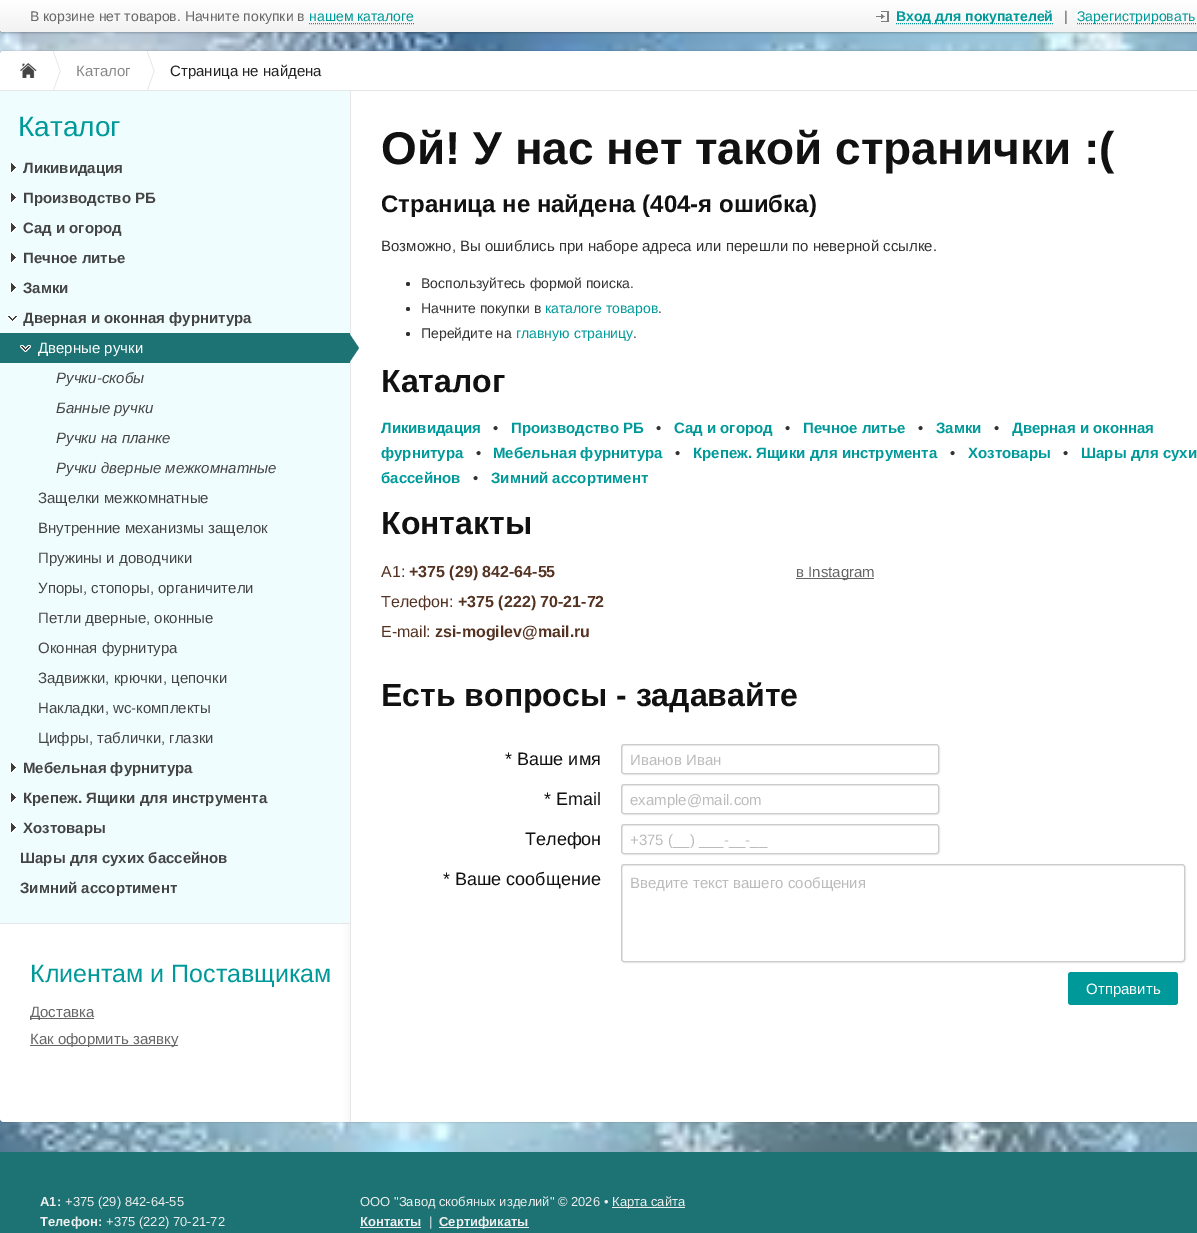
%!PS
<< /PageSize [1197 1233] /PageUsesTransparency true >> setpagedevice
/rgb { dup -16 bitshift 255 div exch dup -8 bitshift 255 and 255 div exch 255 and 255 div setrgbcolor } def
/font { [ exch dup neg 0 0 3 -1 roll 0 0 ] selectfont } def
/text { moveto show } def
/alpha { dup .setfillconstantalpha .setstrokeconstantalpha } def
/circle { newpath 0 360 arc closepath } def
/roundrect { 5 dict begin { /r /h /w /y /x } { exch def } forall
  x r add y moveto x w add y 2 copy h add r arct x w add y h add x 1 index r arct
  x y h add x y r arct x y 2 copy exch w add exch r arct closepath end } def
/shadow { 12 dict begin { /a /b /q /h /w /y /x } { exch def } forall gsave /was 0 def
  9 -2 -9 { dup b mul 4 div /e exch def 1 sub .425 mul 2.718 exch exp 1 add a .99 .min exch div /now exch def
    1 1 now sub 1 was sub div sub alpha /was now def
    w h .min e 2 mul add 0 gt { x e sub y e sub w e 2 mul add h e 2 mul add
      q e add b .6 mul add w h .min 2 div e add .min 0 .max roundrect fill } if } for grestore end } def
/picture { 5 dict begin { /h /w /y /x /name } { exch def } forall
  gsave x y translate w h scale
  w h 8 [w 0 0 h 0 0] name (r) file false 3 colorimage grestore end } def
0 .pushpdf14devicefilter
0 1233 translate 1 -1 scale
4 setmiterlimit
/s1 { /LiberationSans-Regular 14 font 16#666666 rgb } def
/s2 { /LiberationSans-Regular 14 font 16#009999 rgb } def
/s3 { /LiberationSans-Bold 14 font 16#009999 rgb } def
/s4 { /LiberationSans-Regular 15 font 16#888888 rgb } def
/s5 { /LiberationSans-Regular 15 font 16#222222 rgb } def
/s6 { /LiberationSans-Regular 28 font 16#009999 rgb } def
/s7 { /LiberationSans-Bold 15 font 16#444444 rgb } def
/s8 { /LiberationSans-Regular 15 font 16#FFFFFF rgb } def
/s9 { /LiberationSans-Italic 15 font 16#444444 rgb } def
/s10 { /LiberationSans-Regular 15 font 16#444444 rgb } def
/s11 { /LiberationSans-Regular 25 font 16#009999 rgb } def
/s12 { /LiberationSans-Regular 15 font 16#666666 rgb } def
/s13 { /LiberationSans-Bold 46 font 16#111111 rgb } def
/s14 { /LiberationSans-Bold 24 font 16#111111 rgb } def
/s15 { /LiberationSans-Regular 15 font 16#333333 rgb } def
/s16 { /LiberationSans-Regular 14 font 16#333333 rgb } def
/s17 { /LiberationSans-Bold 32 font 16#111111 rgb } def
/s18 { /LiberationSans-Bold 15 font 16#009999 rgb } def
/s19 { /LiberationSans-Regular 16 font 16#553322 rgb } def
/s20 { /LiberationSans-Bold 16 font 16#553322 rgb } def
/s21 { /LiberationSans-Regular 18 font 16#111111 rgb } def
/s22 { /LiberationSans-Regular 15 font 16#BBBBBB rgb } def
/s23 { /LiberationSans-Bold 13 font 16#EEEEEE rgb } def
/s24 { /LiberationSans-Regular 13 font 16#EEEEEE rgb } def
16#FFFFFF rgb
0 0 1197 1233 rectfill
(pic1.raw) 0 28 1197 1124 picture
16#000000 rgb
0 1 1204 32 4 1 0.25 shadow
gsave 0 0 moveto 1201 0 lineto 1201 28 lineto 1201 30 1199 32 1197 32 curveto 4 32 lineto 2 32 0 30 0 28 curveto closepath clip newpath
<< /ShadingType 2 /ColorSpace /DeviceRGB /Coords [0 0 0 32] /Extend [true true] /Function << /FunctionType 2 /Domain [0 1] /C0 [1 1 1] /C1 [0.949 0.949 0.949] /N 1 >> >> shfill grestore
s1
(В корзине нет товаров. Начните покупки в) 30 21 text
16#009999 rgb
[1 1] 0 setdash
309 23.5 moveto 414 23.5 lineto stroke
(нашем каталоге) 309 21 text
(pic2.raw) 876 11 13 11 picture
896 23.5 moveto 1054 23.5 lineto stroke
s3
(Вход для покупателей) 896 21 text
s1
(|) 1064 21 text
16#009999 rgb
1077 23.5 moveto 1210 23.5 lineto stroke
(Зарегистрировать) 1077 21 text
16#000000 rgb
0 51 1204 1071 4 1 0.25 shadow
16#FFFFFF rgb
0 51 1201 1071 4 roundrect fill
(pic3.raw) 0 51 351 1071 picture
4 51 moveto 1197 51 lineto 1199 51 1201 53 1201 55 curveto 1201 91 lineto 0 91 lineto 0 55 lineto 0 53 2 51 4 51 curveto closepath fill
16#E6E6E6 rgb
0 90 1197 1 rectfill
(pic4.raw) 20 63 17 15 picture
(pic5.raw) 53 51 8 39 picture
s4
(Каталог) 76 76 text
(pic5.raw) 147 51 8 39 picture
s5
(Страница не найдена) 170 76 text
16#F0FDFF rgb
0 91 350 832 rectfill
s6
(Каталог) 18 136 text
(pic6.raw) 10 162 7 11 picture
s7
(Ликивидация) 23 173 text
(pic6.raw) 10 192 7 11 picture
(Производство РБ) 23 203 text
(pic6.raw) 10 222 7 11 picture
(Сад и огород) 23 233 text
(pic6.raw) 10 252 7 11 picture
(Печное литье) 23 263 text
(pic6.raw) 10 282 7 11 picture
(Замки) 23 293 text
(pic7.raw) 7 315 11 7 picture
(Дверная и оконная фурнитура) 23 323 text
16#1D7373 rgb
0 333 350 30 rectfill
(pic8.raw) 20 345 11 7 picture
s8
(Дверные ручки) 38 353 text
16#1D7373 rgb
349 363 moveto 349 333 lineto 359 348 lineto closepath fill
s9
(Ручки-скобы) 56 383 text
(Банные ручки) 56 413 text
(Ручки на планке) 56 443 text
(Ручки дверные межкомнатные) 56 473 text
s10
(Защелки межкомнатные) 38 503 text
(Внутренние механизмы защелок) 38 533 text
(Пружины и доводчики) 38 563 text
(Упоры, стопоры, органичители) 38 593 text
(Петли дверные, оконные) 38 623 text
(Оконная фурнитура) 38 653 text
(Задвижки, крючки, цепочки) 38 683 text
(Накладки, wc-комплекты) 38 713 text
(Цифры, таблички, глазки) 38 743 text
(pic6.raw) 10 762 7 11 picture
s7
(Мебельная фурнитура) 23 773 text
(pic6.raw) 10 792 7 11 picture
(Крепеж. Ящики для инструмента) 23 803 text
(pic6.raw) 10 822 7 11 picture
(Хозтовары) 23 833 text
(Шары для сухих бассейнов) 20 863 text
(Зимний ассортимент) 20 893 text
16#E6E6E6 rgb
0 923 350 1 rectfill
s11
(Клиентам и Поставщикам) 30 982 text
16#666666 rgb
30 1018 64 1 rectfill
s12
(Доставка) 30 1017 text
30 1045 148 1 rectfill
(Как оформить заявку) 30 1044 text
s13
(Ой! У нас нет такой странички :\() 381 164 text
s14
(Страница не найдена \(404-я ошибка\)) 381 212 text
s15
(Возможно, Вы ошиблись при наборе адреса или перешли по неверной ссылке.) 381 251 text
408 284 2 circle fill
s16
(Воспользуйтесь формой поиска.) 421 288 text
408 309 2 circle fill
(Начните покупки в) 421 313 text
s2
(каталоге товаров) 545 313 text
s16
(.) 658 313 text
408 334 2 circle fill
(Перейдите на) 421 338 text
s2
(главную страницу) 516 338 text
s16
(.) 633 338 text
s17
(Каталог) 381 392 text
s18
(Ликивидация) 381 433 text
s15
(•) 493 433 text
s18
(Производство РБ) 511 433 text
s15
(•) 656 433 text
s18
(Сад и огород) 674 433 text
s15
(•) 785 433 text
s18
(Печное литье) 803 433 text
s15
(•) 918 433 text
s18
(Замки) 936 433 text
s15
(•) 994 433 text
s18
(Дверная и оконная) 1012 433 text
(фурнитура) 381 458 text
s15
(•) 476 458 text
s18
(Мебельная фурнитура) 493 458 text
s15
(•) 675 458 text
s18
(Крепеж. Ящики для инструмента) 693 458 text
s15
(•) 950 458 text
s18
(Хозтовары) 968 458 text
s15
(•) 1063 458 text
s18
(Шары для сухи) 1081 458 text
(бассейнов) 381 483 text
s15
(•) 473 483 text
s18
(Зимний ассортимент) 491 483 text
s17
(Контакты) 381 534 text
s19
(A1:) 381 577 text
s20
(+375 \(29\) 842-64-55) 409 577 text
s19
(Телефон:) 381 607 text
s20
(+375 \(222\) 70-21-72) 458 607 text
s19
(E-mail:) 381 637 text
s20
(zsi-mogilev@mail.ru) 435 637 text
16#666666 rgb
796 578 78 1 rectfill
s12
(в Instagram) 796 577 text
s17
(Есть вопросы - задавайте) 381 706 text
s21
(* Ваше имя) 505 765 text
16#EEEEEE rgb
622 745 318 30 3 0.5 1 shadow
16#FFFFFF rgb
621 744 318 30 3 roundrect fill
16#EEEEEE rgb
625 746 moveto 938 746 lineto 936 745 lineto 624 745 lineto 621 745 622 750 622 751 curveto 622 759 lineto 622 761 621 772 623 773 curveto 623 752 lineto 623 751 622 746 625 746 curveto closepath fill
16#CCCCCC rgb
[] 0 setdash
621.5 744.5 317 29 2.5 roundrect stroke
s22
(Иванов Иван) 630 765 text
s21
(* Email) 544 805 text
16#EEEEEE rgb
622 785 318 30 3 0.5 1 shadow
16#FFFFFF rgb
621 784 318 30 3 roundrect fill
16#EEEEEE rgb
625 786 moveto 938 786 lineto 936 785 lineto 624 785 lineto 621 785 622 790 622 791 curveto 622 799 lineto 622 801 621 812 623 813 curveto 623 792 lineto 623 791 622 786 625 786 curveto closepath fill
16#CCCCCC rgb
621.5 784.5 317 29 2.5 roundrect stroke
s22
(example@mail.com) 630 805 text
s21
(Телефон) 525 845 text
16#EEEEEE rgb
622 825 318 30 3 0.5 1 shadow
16#FFFFFF rgb
621 824 318 30 3 roundrect fill
16#EEEEEE rgb
625 826 moveto 938 826 lineto 936 825 lineto 624 825 lineto 621 825 622 830 622 831 curveto 622 839 lineto 622 841 621 852 623 853 curveto 623 832 lineto 623 831 622 826 625 826 curveto closepath fill
16#CCCCCC rgb
621.5 824.5 317 29 2.5 roundrect stroke
s22
(+375 \(__\) ___-__-__) 630 845 text
s21
(* Ваше сообщение) 443 885 text
16#EEEEEE rgb
622 865 564 98 3 0.5 1 shadow
16#FFFFFF rgb
621 864 564 98 3 roundrect fill
16#EEEEEE rgb
625 866 moveto 1184 866 lineto 1184 866 1183 865 1182 865 curveto 624 865 lineto 623 865 622 866 622 867 curveto 622 959 lineto 622 960 623 961 623 961 curveto 623 883 lineto 623 881 620 866 625 866 curveto closepath fill
16#CCCCCC rgb
621.5 864.5 563 97 2.5 roundrect stroke
s22
(Введите текст вашего сообщения) 630 888 text
16#009999 rgb
1068 972 110 33 3 roundrect fill
s8
(Отправить) 1086 994 text
16#1D7373 rgb
0 1152 1197 81 rectfill
s23
(A1:) 40 1206 text
s24
(+375 \(29\) 842-64-55) 65 1206 text
s23
(Телефон:) 40 1226 text
s24
(+375 \(222\) 70-21-72) 106 1226 text
(ООО "Завод скобяных изделий" © 2026 •) 360 1206 text
612 1207 73 1 rectfill
(Карта сайта) 612 1206 text
s23
(Контакты) 360 1226 text
360 1227 61 1 rectfill
s24
(|) 429 1226 text
439 1227 90 1 rectfill
s23
(Сертификаты) 439 1226 text
.poppdf14devicefilter showpage
